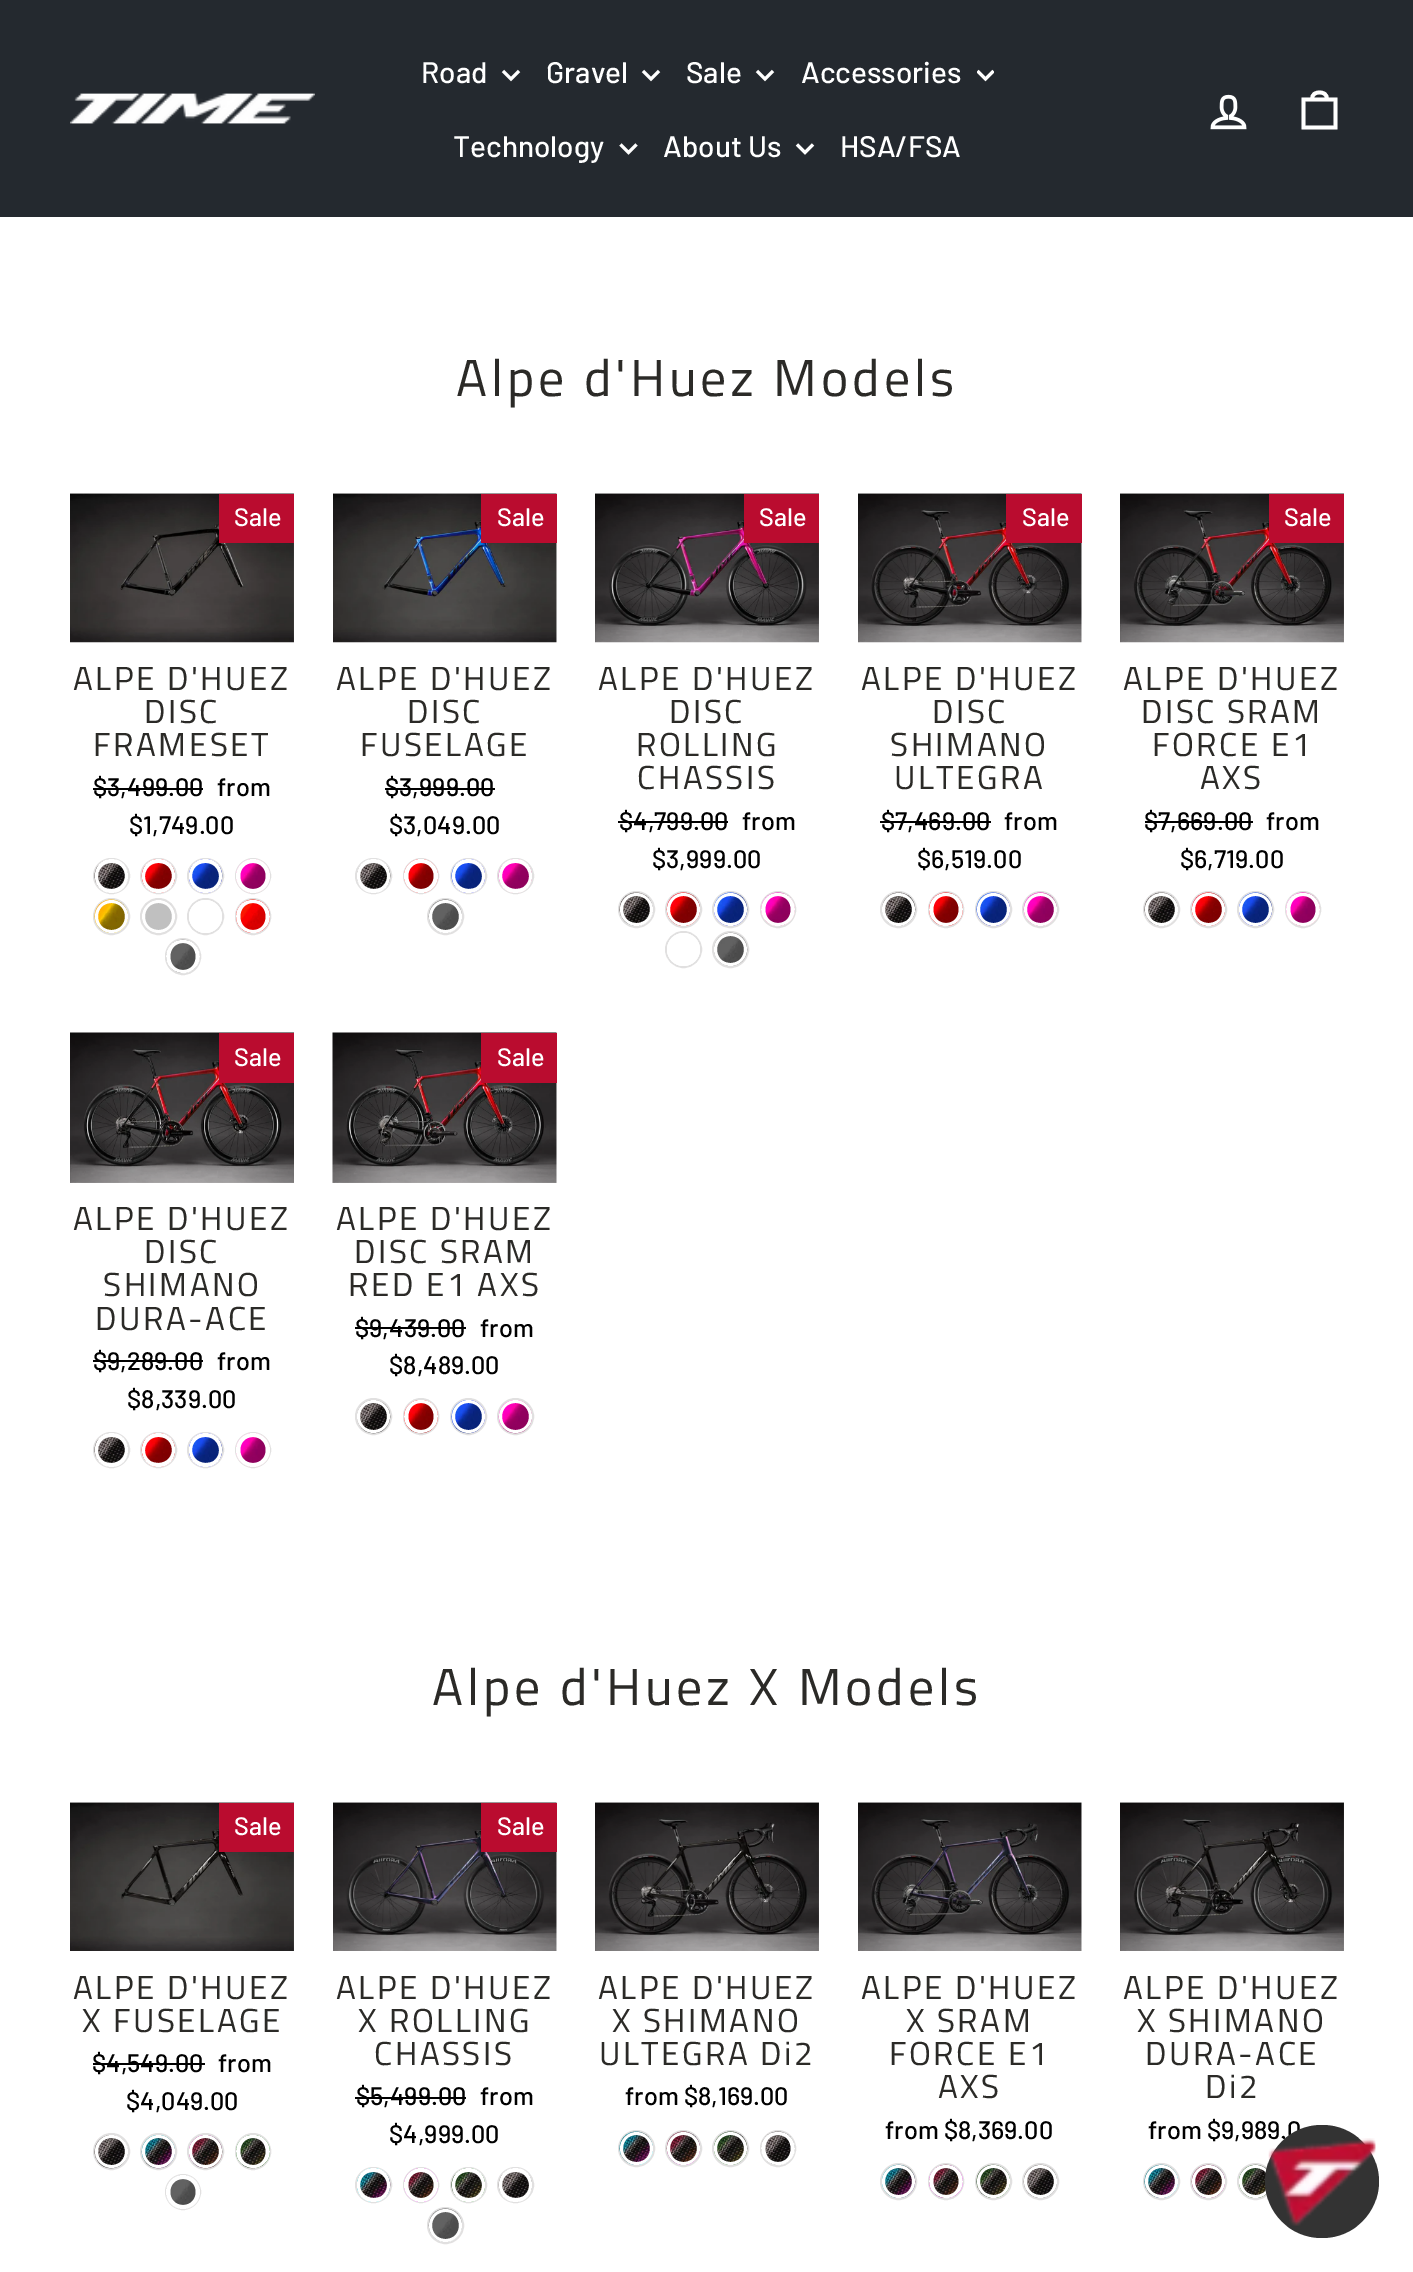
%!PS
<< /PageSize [1413 2272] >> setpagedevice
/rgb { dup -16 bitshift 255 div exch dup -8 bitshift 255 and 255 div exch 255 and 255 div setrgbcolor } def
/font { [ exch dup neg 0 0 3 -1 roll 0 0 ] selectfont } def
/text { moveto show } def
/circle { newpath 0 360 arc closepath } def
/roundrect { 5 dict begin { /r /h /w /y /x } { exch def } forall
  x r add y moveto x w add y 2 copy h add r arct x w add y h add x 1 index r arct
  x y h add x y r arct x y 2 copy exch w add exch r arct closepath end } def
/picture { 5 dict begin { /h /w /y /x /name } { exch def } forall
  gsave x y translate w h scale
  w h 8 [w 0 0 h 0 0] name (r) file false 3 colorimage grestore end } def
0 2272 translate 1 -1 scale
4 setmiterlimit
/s1 { /Barlow-Medium 29.75 font 16#FFFFFF rgb } def
/s2 { /Barlow-Medium 25.25 font 16#FFFFFF rgb } def
/s3 { /Barlow-Medium 25.25 font 16#000000 rgb } def
16#FFFFFF rgb
0 0 1413 2272 rectfill
16#24292F rgb
0 0 1413 217 rectfill
(pic1.raw) 70 93 245 31 picture
s1
(Road) 421 83 text
3.1 setlinewidth
503 71 moveto 511 79 lineto 519 71 lineto stroke
(Gravel) 546 83 text
643 71 moveto 651 79 lineto 659 71 lineto stroke
(Sale) 686 83 text
757 71 moveto 765 79 lineto 773 71 lineto stroke
(Accessories) 801 83 text
gsave
977 67 17 17 rectclip
977.5 71 moveto 985.5 79 lineto 993.5 71 lineto stroke
grestore
(Technology) 453 157 text
620.5 144.5 moveto 628.5 152.5 lineto 636.5 144.5 lineto stroke
(About Us) 663 157 text
797 144.5 moveto 805 152.5 lineto 813 144.5 lineto stroke
(HSA/FSA) 840 157 text
(pic2.raw) 1210 94 37 36 picture
3.8 setlinewidth
1303.5 99.5 moveto 1335.5 99.5 lineto 1335.5 127.5 lineto 1303.5 127.5 lineto closepath 1312 99.5 moveto 1312 94 1315.5 92.5 1319.5 92.5 curveto 1323.5 92.5 1327 94 1327 99.5 curveto stroke
/TitilliumWeb-Regular 52 font
16#2B2A27 rgb
456 396 moveto 3.9 0 (Alpe d'Huez Models) ashow
(pic3.raw) 70 493 224 150 picture
16#BA0C2F rgb
219 494 75 49 rectfill
s2
(Sale) 234 526 text
/TitilliumWeb-Regular 33.25 font
16#2B2A27 rgb
73 690 moveto 2.5 0 (ALPE D'HUEZ) ashow
144 723 moveto 2.5 0 (DISC) ashow
93 756 moveto 2.5 0 (FRAMESET) ashow
s3
($3,499.00) 93 796 text
93 788 110 2 rectfill
(from) 217 796 text
($1,749.00) 129 834 text
16#E1E0E0 rgb
2 setlinewidth
94 859 35 34 17 roundrect stroke
(pic4.raw) 94 859 34 34 picture
16#FFFFFF rgb
111.5 859 moveto 89.5 859 89.5 893 111.5 893 curveto 133.5 893 133.5 859 111.5 859 curveto closepath 111 863 moveto 98.5 863 93 879.5 103.5 887 curveto 106 888.5 109 889 112 889 curveto 130 887.5 128.5 863 112 863 curveto closepath eofill
16#E1E0E0 rgb
141 859 35 34 17 roundrect stroke
(pic5.raw) 141 859 34 34 picture
16#FFFFFF rgb
158.5 859 moveto 136.5 859 136.5 893 158.5 893 curveto 180.5 893 180.5 859 158.5 859 curveto closepath 158 863 moveto 145.5 863 140 879.5 150.5 887 curveto 153 888.5 156 889 159 889 curveto 177 887.5 175.5 863 159 863 curveto closepath eofill
16#E1E0E0 rgb
188 859 35 34 17 roundrect stroke
(pic6.raw) 189 859 34 34 picture
16#FFFFFF rgb
205.5 859 moveto 183.5 859 183.5 893 205.5 893 curveto 227.5 893 227.5 859 205.5 859 curveto closepath 205 863 moveto 188.5 863 187 887.5 205 889 curveto 208 889 211 888.5 213.5 887 curveto 224 879.5 218.5 863 206 863 curveto closepath eofill
16#E1E0E0 rgb
253 876 17 circle stroke
(pic7.raw) 236 859 34 34 picture
16#FFFFFF rgb
253 859 moveto 243.5 859 236 866.5 236 876 curveto 236 885.5 243.5 893 253 893 curveto 262.5 893 270 885.5 270 876 curveto 270 866.5 262.5 859 253 859 curveto closepath 253 863 moveto 236 863 236 889 253 889 curveto 270 889 270 863 253 863 curveto closepath eofill
16#E1E0E0 rgb
111.5 916.5 17.5 circle stroke
(pic8.raw) 94 899 34 34 picture
16#FFFFFF rgb
111.5 900 moveto 102.5 900 95 907.5 95 916.5 curveto 95 925.5 102.5 933 111.5 933 curveto 120.5 933 128 925.5 128 916.5 curveto 128 907.5 120.5 900 111.5 900 curveto closepath 111.5 903 moveto 93.5 903 93.5 930 111.5 930 curveto 129.5 930 129.5 903 111.5 903 curveto closepath eofill
16#E1E0E0 rgb
158.5 916.5 17.5 circle stroke
16#C0C0C0 rgb
158.5 916.5 16.5 circle fill
16#FFFFFF rgb
158.5 900 moveto 149.5 900 142 907.5 142 916.5 curveto 142 925.5 149.5 933 158.5 933 curveto 167.5 933 175 925.5 175 916.5 curveto 175 907.5 167.5 900 158.5 900 curveto closepath 158.5 903 moveto 140.5 903 140.5 930 158.5 930 curveto 176.5 930 176.5 903 158.5 903 curveto closepath eofill
16#E1E0E0 rgb
205.5 916.5 17.5 circle stroke
16#FFFFFF rgb
205.5 916.5 16.5 circle fill
205.5 900 moveto 196.5 900 189 907.5 189 916.5 curveto 189 925.5 196.5 933 205.5 933 curveto 214.5 933 222 925.5 222 916.5 curveto 222 907.5 214.5 900 205.5 900 curveto closepath 205.5 903 moveto 187.5 903 187.5 930 205.5 930 curveto 223.5 930 223.5 903 205.5 903 curveto closepath eofill
16#E1E0E0 rgb
236 899 34 35 17 roundrect stroke
16#FF0000 rgb
236 900 34 33 16.5 roundrect fill
(pic9.raw) 236 899 34 34 picture
16#FFFFFF rgb
252.5 900 moveto 232 900 229.5 931 252.5 933 curveto 256 933.5 260 932 262.5 930 curveto 276 921 269.5 900 253.5 900 curveto closepath 253 903 moveto 236 903 236 930 253 930 curveto 270 930 270 903 253 903 curveto closepath eofill
16#E1E0E0 rgb
166 939 34 35 17 roundrect stroke
(pic10.raw) 166 939 34 34 picture
16#FFFFFF rgb
182.5 940 moveto 162 940 159.5 971 182.5 973 curveto 186 973.5 190 972 192.5 970 curveto 206 961 199.5 940 183.5 940 curveto closepath 183 943 moveto 166 943 166 970 183 970 curveto 200 970 200 943 183 943 curveto closepath eofill
(pic11.raw) 333 493 224 150 picture
16#BA0C2F rgb
481 494 76 49 rectfill
s2
(Sale) 497 526 text
/TitilliumWeb-Regular 33.25 font
16#2B2A27 rgb
336 690 moveto 2.5 0 (ALPE D'HUEZ) ashow
407 723 moveto 2.5 0 (DISC) ashow
360 756 moveto 2.5 0 (FUSELAGE) ashow
s3
($3,999.00) 385 796 text
385 788 110 2 rectfill
($3,049.00) 389 834 text
16#E1E0E0 rgb
356 859 35 34 17 roundrect stroke
(pic12.raw) 357 859 34 34 picture
16#FFFFFF rgb
373.5 859 moveto 351.5 859 351.5 893 373.5 893 curveto 395.5 893 395.5 859 373.5 859 curveto closepath 373 863 moveto 356.5 863 355 887.5 373 889 curveto 376 889 379 888.5 381.5 887 curveto 392 879.5 386.5 863 374 863 curveto closepath eofill
16#E1E0E0 rgb
421 876 17 circle stroke
(pic13.raw) 404 859 34 34 picture
16#FFFFFF rgb
421 859 moveto 411.5 859 404 866.5 404 876 curveto 404 885.5 411.5 893 421 893 curveto 430.5 893 438 885.5 438 876 curveto 438 866.5 430.5 859 421 859 curveto closepath 421 863 moveto 404 863 404 889 421 889 curveto 438 889 438 863 421 863 curveto closepath eofill
16#E1E0E0 rgb
451 859 35 34 17 roundrect stroke
(pic14.raw) 451 859 34 34 picture
16#FFFFFF rgb
468.5 859 moveto 446.5 859 446.5 893 468.5 893 curveto 490.5 893 490.5 859 468.5 859 curveto closepath 468 863 moveto 451.5 863 450 887.5 468 889 curveto 471 889 474 888.5 476.5 887 curveto 487 879.5 481.5 863 469 863 curveto closepath eofill
16#E1E0E0 rgb
498 859 35 34 17 roundrect stroke
(pic15.raw) 498 859 34 34 picture
16#FFFFFF rgb
515.5 859 moveto 493.5 859 493.5 893 515.5 893 curveto 537.5 893 537.5 859 515.5 859 curveto closepath 515 863 moveto 498.5 863 497 887.5 515 889 curveto 518 889 521 888.5 523.5 887 curveto 534 879.5 528.5 863 516 863 curveto closepath eofill
16#E1E0E0 rgb
445.5 916.5 17.5 circle stroke
(pic16.raw) 428 899 34 34 picture
16#FFFFFF rgb
445.5 900 moveto 436.5 900 429 907.5 429 916.5 curveto 429 925.5 436.5 933 445.5 933 curveto 454.5 933 462 925.5 462 916.5 curveto 462 907.5 454.5 900 445.5 900 curveto closepath 445.5 903 moveto 427.5 903 427.5 930 445.5 930 curveto 463.5 930 463.5 903 445.5 903 curveto closepath eofill
(pic17.raw) 595 493 224 150 picture
16#BA0C2F rgb
744 494 75 49 rectfill
s2
(Sale) 759 526 text
/TitilliumWeb-Regular 33.25 font
16#2B2A27 rgb
598 690 moveto 2.5 0 (ALPE D'HUEZ) ashow
669 723 moveto 2.5 0 (DISC) ashow
636 756 moveto 2.5 0 (ROLLING) ashow
637 789 moveto 2.5 0 (CHASSIS) ashow
s3
($4,799.00) 619 830 text
618 821 110 2 rectfill
(from) 742 830 text
($3,999.00) 652 868 text
16#E1E0E0 rgb
636.5 909.5 17.5 circle stroke
(pic18.raw) 619 892 34 34 picture
16#FFFFFF rgb
636.5 893 moveto 627.5 893 620 900.5 620 909.5 curveto 620 918.5 627.5 926 636.5 926 curveto 645.5 926 653 918.5 653 909.5 curveto 653 900.5 645.5 893 636.5 893 curveto closepath 636.5 896 moveto 618.5 896 618.5 923 636.5 923 curveto 654.5 923 654.5 896 636.5 896 curveto closepath eofill
16#E1E0E0 rgb
683.5 909.5 17.5 circle stroke
(pic19.raw) 666 892 35 34 picture
16#FFFFFF rgb
683.5 893 moveto 674.5 893 667 900.5 667 909.5 curveto 667 918.5 674.5 926 683.5 926 curveto 692.5 926 700 918.5 700 909.5 curveto 700 900.5 692.5 893 683.5 893 curveto closepath 683.5 896 moveto 665.5 896 665.5 923 683.5 923 curveto 701.5 923 701.5 896 683.5 896 curveto closepath eofill
16#E1E0E0 rgb
730.5 909.5 17.5 circle stroke
(pic20.raw) 713 892 35 34 picture
16#FFFFFF rgb
730.5 893 moveto 721.5 893 714 900.5 714 909.5 curveto 714 918.5 721.5 926 730.5 926 curveto 739.5 926 747 918.5 747 909.5 curveto 747 900.5 739.5 893 730.5 893 curveto closepath 730.5 896 moveto 712.5 896 712.5 923 730.5 923 curveto 748.5 923 748.5 896 730.5 896 curveto closepath eofill
16#E1E0E0 rgb
761 892 34 35 17 roundrect stroke
16#FFC0CB rgb
761 893 34 33 16.5 roundrect fill
(pic21.raw) 761 892 34 34 picture
16#FFFFFF rgb
777.5 893 moveto 761.5 893 755 914 768.5 923 curveto 771 925 775 926.5 778.5 926 curveto 801.5 924 799 893 778.5 893 curveto closepath 778 896 moveto 761 896 761 923 778 923 curveto 795 923 795 896 778 896 curveto closepath eofill
16#E1E0E0 rgb
683.5 949.5 17.5 circle stroke
16#FFFFFF rgb
683.5 949.5 16.5 circle fill
683.5 933 moveto 674.5 933 667 940.5 667 949.5 curveto 667 958.5 674.5 966 683.5 966 curveto 692.5 966 700 958.5 700 949.5 curveto 700 940.5 692.5 933 683.5 933 curveto closepath 683.5 936 moveto 665.5 936 665.5 963 683.5 963 curveto 701.5 963 701.5 936 683.5 936 curveto closepath eofill
16#E1E0E0 rgb
730.5 949.5 17.5 circle stroke
(pic22.raw) 714 932 34 34 picture
16#FFFFFF rgb
730.5 933 moveto 721.5 933 714 940.5 714 949.5 curveto 714 958.5 721.5 966 730.5 966 curveto 739.5 966 747 958.5 747 949.5 curveto 747 940.5 739.5 933 730.5 933 curveto closepath 730.5 936 moveto 712.5 936 712.5 963 730.5 963 curveto 748.5 963 748.5 936 730.5 936 curveto closepath eofill
(pic23.raw) 858 493 224 150 picture
16#BA0C2F rgb
1006 494 76 49 rectfill
s2
(Sale) 1022 526 text
/TitilliumWeb-Regular 33.25 font
16#2B2A27 rgb
861 690 moveto 2.5 0 (ALPE D'HUEZ) ashow
932 723 moveto 2.5 0 (DISC) ashow
890 756 moveto 2.5 0 (SHIMANO) ashow
894 789 moveto 2.5 0 (ULTEGRA) ashow
s3
($7,469.00) 881 830 text
880 821 111 2 rectfill
(from) 1004 830 text
($6,519.00) 917 868 text
16#E1E0E0 rgb
898.5 909.5 17.5 circle stroke
(pic24.raw) 881 892 35 34 picture
16#FFFFFF rgb
898.5 893 moveto 889.5 893 882 900.5 882 909.5 curveto 882 918.5 889.5 926 898.5 926 curveto 907.5 926 915 918.5 915 909.5 curveto 915 900.5 907.5 893 898.5 893 curveto closepath 898.5 896 moveto 880.5 896 880.5 923 898.5 923 curveto 916.5 923 916.5 896 898.5 896 curveto closepath eofill
16#E1E0E0 rgb
929 892 34 35 17 roundrect stroke
16#FF0000 rgb
929 893 34 33 16.5 roundrect fill
(pic25.raw) 929 892 34 34 picture
16#FFFFFF rgb
945.5 893 moveto 929.5 893 923 914 936.5 923 curveto 939 925 943 926.5 946.5 926 curveto 969.5 924 967 893 946.5 893 curveto closepath 946 896 moveto 929 896 929 923 946 923 curveto 963 923 963 896 946 896 curveto closepath eofill
16#E1E0E0 rgb
993.5 909.5 17.5 circle stroke
(pic26.raw) 976 892 34 34 picture
16#FFFFFF rgb
993.5 893 moveto 984.5 893 977 900.5 977 909.5 curveto 977 918.5 984.5 926 993.5 926 curveto 1002.5 926 1010 918.5 1010 909.5 curveto 1010 900.5 1002.5 893 993.5 893 curveto closepath 993.5 896 moveto 975.5 896 975.5 923 993.5 923 curveto 1011.5 923 1011.5 896 993.5 896 curveto closepath eofill
16#E1E0E0 rgb
1040.5 909.5 17.5 circle stroke
(pic27.raw) 1023 892 35 34 picture
16#FFFFFF rgb
1040.5 893 moveto 1031.5 893 1024 900.5 1024 909.5 curveto 1024 918.5 1031.5 926 1040.5 926 curveto 1049.5 926 1057 918.5 1057 909.5 curveto 1057 900.5 1049.5 893 1040.5 893 curveto closepath 1040.5 896 moveto 1022.5 896 1022.5 923 1040.5 923 curveto 1058.5 923 1058.5 896 1040.5 896 curveto closepath eofill
(pic28.raw) 1120 493 224 150 picture
16#BA0C2F rgb
1269 494 75 49 rectfill
s2
(Sale) 1284 526 text
/TitilliumWeb-Regular 33.25 font
16#2B2A27 rgb
1123 690 moveto 2.5 0 (ALPE D'HUEZ) ashow
1141 723 moveto 2.5 0 (DISC SRAM) ashow
1152 756 moveto 2.5 0 (FORCE E1) ashow
1200 789 moveto 2.5 0 (AXS) ashow
s3
($7,669.00) 1144 830 text
1145 821 108 2 rectfill
(from) 1266 830 text
($6,719.00) 1180 868 text
16#E1E0E0 rgb
1161.5 909.5 17.5 circle stroke
(pic18.raw) 1144 892 34 34 picture
16#FFFFFF rgb
1161.5 893 moveto 1152.5 893 1145 900.5 1145 909.5 curveto 1145 918.5 1152.5 926 1161.5 926 curveto 1170.5 926 1178 918.5 1178 909.5 curveto 1178 900.5 1170.5 893 1161.5 893 curveto closepath 1161.5 896 moveto 1143.5 896 1143.5 923 1161.5 923 curveto 1179.5 923 1179.5 896 1161.5 896 curveto closepath eofill
16#E1E0E0 rgb
1208.5 909.5 17.5 circle stroke
(pic19.raw) 1191 892 35 34 picture
16#FFFFFF rgb
1208.5 893 moveto 1199.5 893 1192 900.5 1192 909.5 curveto 1192 918.5 1199.5 926 1208.5 926 curveto 1217.5 926 1225 918.5 1225 909.5 curveto 1225 900.5 1217.5 893 1208.5 893 curveto closepath 1208.5 896 moveto 1190.5 896 1190.5 923 1208.5 923 curveto 1226.5 923 1226.5 896 1208.5 896 curveto closepath eofill
16#E1E0E0 rgb
1255.5 909.5 17.5 circle stroke
(pic29.raw) 1239 892 34 34 picture
16#FFFFFF rgb
1255.5 893 moveto 1246.5 893 1239 900.5 1239 909.5 curveto 1239 918.5 1246.5 926 1255.5 926 curveto 1264.5 926 1272 918.5 1272 909.5 curveto 1272 900.5 1264.5 893 1255.5 893 curveto closepath 1255.5 896 moveto 1237.5 896 1237.5 923 1255.5 923 curveto 1273.5 923 1273.5 896 1255.5 896 curveto closepath eofill
16#E1E0E0 rgb
1286 892 34 35 17 roundrect stroke
16#FFC0CB rgb
1286 893 34 33 16.5 roundrect fill
(pic30.raw) 1286 892 34 34 picture
16#FFFFFF rgb
1302.5 893 moveto 1282 893 1279.5 924 1302.5 926 curveto 1306 926.5 1310 925 1312.5 923 curveto 1326 914 1319.5 893 1303.5 893 curveto closepath 1303 896 moveto 1286 896 1286 923 1303 923 curveto 1320 923 1320 896 1303 896 curveto closepath eofill
(pic31.raw) 70 1032 224 151 picture
16#BA0C2F rgb
219 1033 75 50 rectfill
s2
(Sale) 234 1066 text
/TitilliumWeb-Regular 33.25 font
16#2B2A27 rgb
73 1230 moveto 2.5 0 (ALPE D'HUEZ) ashow
144 1263 moveto 2.5 0 (DISC) ashow
103 1296 moveto 2.5 0 (SHIMANO) ashow
95 1330 moveto 2.5 0 (DURA-ACE) ashow
s3
($9,289.00) 93 1370 text
93 1360 110 2 rectfill
(from) 217 1370 text
($8,339.00) 127 1408 text
16#E1E0E0 rgb
94 1433 35 34 17 roundrect stroke
(pic4.raw) 94 1433 34 34 picture
16#FFFFFF rgb
111.5 1433 moveto 89.5 1433 89.5 1467 111.5 1467 curveto 133.5 1467 133.5 1433 111.5 1433 curveto closepath 111 1437 moveto 98.5 1437 93 1453.5 103.5 1461 curveto 106 1462.5 109 1463 112 1463 curveto 130 1461.5 128.5 1437 112 1437 curveto closepath eofill
16#E1E0E0 rgb
141 1433 35 34 17 roundrect stroke
(pic5.raw) 141 1433 34 34 picture
16#FFFFFF rgb
158.5 1433 moveto 136.5 1433 136.5 1467 158.5 1467 curveto 180.5 1467 180.5 1433 158.5 1433 curveto closepath 158 1437 moveto 145.5 1437 140 1453.5 150.5 1461 curveto 153 1462.5 156 1463 159 1463 curveto 177 1461.5 175.5 1437 159 1437 curveto closepath eofill
16#E1E0E0 rgb
188 1433 35 34 17 roundrect stroke
(pic6.raw) 189 1433 34 34 picture
16#FFFFFF rgb
205.5 1433 moveto 183.5 1433 183.5 1467 205.5 1467 curveto 227.5 1467 227.5 1433 205.5 1433 curveto closepath 205 1437 moveto 188.5 1437 187 1461.5 205 1463 curveto 208 1463 211 1462.5 213.5 1461 curveto 224 1453.5 218.5 1437 206 1437 curveto closepath eofill
16#E1E0E0 rgb
253 1450 17 circle stroke
(pic7.raw) 236 1433 34 34 picture
16#FFFFFF rgb
253 1433 moveto 243.5 1433 236 1440.5 236 1450 curveto 236 1459.5 243.5 1467 253 1467 curveto 262.5 1467 270 1459.5 270 1450 curveto 270 1440.5 262.5 1433 253 1433 curveto closepath 253 1437 moveto 236 1437 236 1463 253 1463 curveto 270 1463 270 1437 253 1437 curveto closepath eofill
(pic32.raw) 332 1032 225 151 picture
16#BA0C2F rgb
481 1033 76 50 rectfill
s2
(Sale) 497 1066 text
/TitilliumWeb-Regular 33.25 font
16#2B2A27 rgb
336 1230 moveto 2.5 0 (ALPE D'HUEZ) ashow
354 1263 moveto 2.5 0 (DISC SRAM) ashow
348 1296 moveto 2.5 0 (RED E1 AXS) ashow
s3
($9,439.00) 355 1337 text
355 1327 111 2 rectfill
(from) 480 1337 text
($8,489.00) 389 1374 text
16#E1E0E0 rgb
373.5 1416.5 17.5 circle stroke
(pic33.raw) 357 1400 34 34 picture
16#FFFFFF rgb
373.5 1400 moveto 364.5 1400 357 1407.5 357 1416.5 curveto 357 1425.5 364.5 1433 373.5 1433 curveto 382.5 1433 390 1425.5 390 1416.5 curveto 390 1407.5 382.5 1400 373.5 1400 curveto closepath 373.5 1403 moveto 355.5 1403 355.5 1430 373.5 1430 curveto 391.5 1430 391.5 1403 373.5 1403 curveto closepath eofill
16#E1E0E0 rgb
404 1399 34 35 17 roundrect stroke
16#FF0000 rgb
404 1400 34 33 16.5 roundrect fill
(pic34.raw) 404 1400 34 34 picture
16#FFFFFF rgb
420.5 1400 moveto 404.5 1400 398 1421 411.5 1430 curveto 414 1432 418 1433.5 421.5 1433 curveto 444.5 1431 442 1400 421.5 1400 curveto closepath 421 1403 moveto 404 1403 404 1430 421 1430 curveto 438 1430 438 1403 421 1403 curveto closepath eofill
16#E1E0E0 rgb
468.5 1416.5 17.5 circle stroke
(pic35.raw) 451 1400 34 34 picture
16#FFFFFF rgb
468.5 1400 moveto 459.5 1400 452 1407.5 452 1416.5 curveto 452 1425.5 459.5 1433 468.5 1433 curveto 477.5 1433 485 1425.5 485 1416.5 curveto 485 1407.5 477.5 1400 468.5 1400 curveto closepath 468.5 1403 moveto 450.5 1403 450.5 1430 468.5 1430 curveto 486.5 1430 486.5 1403 468.5 1403 curveto closepath eofill
16#E1E0E0 rgb
515.5 1416.5 17.5 circle stroke
(pic36.raw) 498 1400 34 34 picture
16#FFFFFF rgb
515.5 1400 moveto 506.5 1400 499 1407.5 499 1416.5 curveto 499 1425.5 506.5 1433 515.5 1433 curveto 524.5 1433 532 1425.5 532 1416.5 curveto 532 1407.5 524.5 1400 515.5 1400 curveto closepath 515.5 1403 moveto 497.5 1403 497.5 1430 515.5 1430 curveto 533.5 1430 533.5 1403 515.5 1403 curveto closepath eofill
/TitilliumWeb-Regular 52 font
16#2B2A27 rgb
432 1705 moveto 3.9 0 (Alpe d'Huez X Models) ashow
(pic37.raw) 70 1802 224 149 picture
16#BA0C2F rgb
219 1803 75 49 rectfill
s2
(Sale) 234 1835 text
/TitilliumWeb-Regular 33.25 font
16#2B2A27 rgb
73 1999 moveto 2.5 0 (ALPE D'HUEZ) ashow
82 2032 moveto 2.5 0 (X FUSELAGE) ashow
s3
($4,549.00) 92 2072 text
93 2063 112 2 rectfill
(from) 218 2072 text
($4,049.00) 126 2110 text
16#E1E0E0 rgb
111.5 2151.5 17.5 circle stroke
(pic38.raw) 94 2135 34 34 picture
16#FFFFFF rgb
111.5 2135 moveto 102.5 2135 95 2142.5 95 2151.5 curveto 95 2160.5 102.5 2168 111.5 2168 curveto 120.5 2168 128 2160.5 128 2151.5 curveto 128 2142.5 120.5 2135 111.5 2135 curveto closepath 111.5 2138 moveto 93.5 2138 93.5 2165 111.5 2165 curveto 129.5 2165 129.5 2138 111.5 2138 curveto closepath eofill
16#E1E0E0 rgb
158.5 2151.5 17.5 circle stroke
(pic39.raw) 141 2135 34 34 picture
16#FFFFFF rgb
158.5 2135 moveto 149.5 2135 142 2142.5 142 2151.5 curveto 142 2160.5 149.5 2168 158.5 2168 curveto 167.5 2168 175 2160.5 175 2151.5 curveto 175 2142.5 167.5 2135 158.5 2135 curveto closepath 158.5 2138 moveto 140.5 2138 140.5 2165 158.5 2165 curveto 176.5 2165 176.5 2138 158.5 2138 curveto closepath eofill
16#E1E0E0 rgb
205.5 2151.5 17.5 circle stroke
(pic40.raw) 189 2135 34 34 picture
16#FFFFFF rgb
205.5 2135 moveto 196.5 2135 189 2142.5 189 2151.5 curveto 189 2160.5 196.5 2168 205.5 2168 curveto 214.5 2168 222 2160.5 222 2151.5 curveto 222 2142.5 214.5 2135 205.5 2135 curveto closepath 205.5 2138 moveto 187.5 2138 187.5 2165 205.5 2165 curveto 223.5 2165 223.5 2138 205.5 2138 curveto closepath eofill
16#E1E0E0 rgb
236 2134 34 35 17 roundrect stroke
16#008000 rgb
236 2135 34 33 16.5 roundrect fill
(pic41.raw) 236 2135 34 34 picture
16#FFFFFF rgb
252.5 2135 moveto 232 2135 229.5 2166 252.5 2168 curveto 256 2168.5 260 2167 262.5 2165 curveto 276 2156 269.5 2135 253.5 2135 curveto closepath 253 2138 moveto 236 2138 236 2165 253 2165 curveto 270 2165 270 2138 253 2138 curveto closepath eofill
16#E1E0E0 rgb
183 2192 17 circle stroke
(pic42.raw) 166 2175 34 34 picture
16#FFFFFF rgb
183 2175 moveto 173.5 2175 166 2182.5 166 2192 curveto 166 2201.5 173.5 2209 183 2209 curveto 192.5 2209 200 2201.5 200 2192 curveto 200 2182.5 192.5 2175 183 2175 curveto closepath 183 2179 moveto 166 2179 166 2205 183 2205 curveto 200 2205 200 2179 183 2179 curveto closepath eofill
(pic43.raw) 333 1802 224 149 picture
16#BA0C2F rgb
481 1803 76 49 rectfill
s2
(Sale) 497 1835 text
/TitilliumWeb-Regular 33.25 font
16#2B2A27 rgb
336 1999 moveto 2.5 0 (ALPE D'HUEZ) ashow
358 2032 moveto 2.5 0 (X ROLLING) ashow
374 2065 moveto 2.5 0 (CHASSIS) ashow
s3
($5,499.00) 356 2105 text
355 2097 111 2 rectfill
(from) 480 2105 text
($4,999.00) 389 2143 text
16#E1E0E0 rgb
356 2168 35 34 17 roundrect stroke
(pic44.raw) 357 2168 34 34 picture
16#FFFFFF rgb
373.5 2168 moveto 351.5 2168 351.5 2202 373.5 2202 curveto 395.5 2202 395.5 2168 373.5 2168 curveto closepath 373 2172 moveto 356.5 2172 355 2196.5 373 2198 curveto 376 2198 379 2197.5 381.5 2196 curveto 392 2188.5 386.5 2172 374 2172 curveto closepath eofill
16#E1E0E0 rgb
421 2185 17 circle stroke
(pic45.raw) 404 2168 34 34 picture
16#FFFFFF rgb
421 2168 moveto 411.5 2168 404 2175.5 404 2185 curveto 404 2194.5 411.5 2202 421 2202 curveto 430.5 2202 438 2194.5 438 2185 curveto 438 2175.5 430.5 2168 421 2168 curveto closepath 421 2172 moveto 404 2172 404 2198 421 2198 curveto 438 2198 438 2172 421 2172 curveto closepath eofill
16#E1E0E0 rgb
451 2168 35 34 17 roundrect stroke
(pic46.raw) 451 2168 34 34 picture
16#FFFFFF rgb
468.5 2168 moveto 446.5 2168 446.5 2202 468.5 2202 curveto 490.5 2202 490.5 2168 468.5 2168 curveto closepath 468 2172 moveto 451.5 2172 450 2196.5 468 2198 curveto 471 2198 474 2197.5 476.5 2196 curveto 487 2188.5 481.5 2172 469 2172 curveto closepath eofill
16#E1E0E0 rgb
498 2168 35 34 17 roundrect stroke
(pic47.raw) 498 2168 34 34 picture
16#FFFFFF rgb
515.5 2168 moveto 493.5 2168 493.5 2202 515.5 2202 curveto 537.5 2202 537.5 2168 515.5 2168 curveto closepath 515 2172 moveto 498.5 2172 497 2196.5 515 2198 curveto 518 2198 521 2197.5 523.5 2196 curveto 534 2188.5 528.5 2172 516 2172 curveto closepath eofill
16#E1E0E0 rgb
445.5 2225.5 17.5 circle stroke
(pic16.raw) 428 2208 34 34 picture
16#FFFFFF rgb
445.5 2209 moveto 436.5 2209 429 2216.5 429 2225.5 curveto 429 2234.5 436.5 2242 445.5 2242 curveto 454.5 2242 462 2234.5 462 2225.5 curveto 462 2216.5 454.5 2209 445.5 2209 curveto closepath 445.5 2212 moveto 427.5 2212 427.5 2239 445.5 2239 curveto 463.5 2239 463.5 2212 445.5 2212 curveto closepath eofill
(pic48.raw) 595 1802 224 149 picture
/TitilliumWeb-Regular 33.25 font
16#2B2A27 rgb
598 1999 moveto 2.5 0 (ALPE D'HUEZ) ashow
612 2032 moveto 2.5 0 (X SHIMANO) ashow
599 2065 moveto 2.5 0 (ULTEGRA Di2) ashow
s3
(from $8,169.00) 625 2105 text
16#E1E0E0 rgb
636.5 2148.5 17.5 circle stroke
(pic49.raw) 619 2131 34 34 picture
16#FFFFFF rgb
636.5 2132 moveto 627.5 2132 620 2139.5 620 2148.5 curveto 620 2157.5 627.5 2165 636.5 2165 curveto 645.5 2165 653 2157.5 653 2148.5 curveto 653 2139.5 645.5 2132 636.5 2132 curveto closepath 636.5 2135 moveto 618.5 2135 618.5 2162 636.5 2162 curveto 654.5 2162 654.5 2135 636.5 2135 curveto closepath eofill
16#E1E0E0 rgb
683.5 2148.5 17.5 circle stroke
(pic50.raw) 666 2131 35 34 picture
16#FFFFFF rgb
683.5 2132 moveto 674.5 2132 667 2139.5 667 2148.5 curveto 667 2157.5 674.5 2165 683.5 2165 curveto 692.5 2165 700 2157.5 700 2148.5 curveto 700 2139.5 692.5 2132 683.5 2132 curveto closepath 683.5 2135 moveto 665.5 2135 665.5 2162 683.5 2162 curveto 701.5 2162 701.5 2135 683.5 2135 curveto closepath eofill
16#E1E0E0 rgb
730.5 2148.5 17.5 circle stroke
(pic51.raw) 713 2131 35 34 picture
16#FFFFFF rgb
730.5 2132 moveto 721.5 2132 714 2139.5 714 2148.5 curveto 714 2157.5 721.5 2165 730.5 2165 curveto 739.5 2165 747 2157.5 747 2148.5 curveto 747 2139.5 739.5 2132 730.5 2132 curveto closepath 730.5 2135 moveto 712.5 2135 712.5 2162 730.5 2162 curveto 748.5 2162 748.5 2135 730.5 2135 curveto closepath eofill
16#E1E0E0 rgb
761 2131 34 35 17 roundrect stroke
(pic52.raw) 761 2131 34 34 picture
16#FFFFFF rgb
777.5 2132 moveto 757 2132 754.5 2163 777.5 2165 curveto 781 2165.5 785 2164 787.5 2162 curveto 801 2153 794.5 2132 778.5 2132 curveto closepath 778 2135 moveto 761 2135 761 2162 778 2162 curveto 795 2162 795 2135 778 2135 curveto closepath eofill
(pic53.raw) 858 1802 224 149 picture
/TitilliumWeb-Regular 33.25 font
16#2B2A27 rgb
861 1999 moveto 2.5 0 (ALPE D'HUEZ) ashow
906 2032 moveto 2.5 0 (X SRAM) ashow
889 2065 moveto 2.5 0 (FORCE E1) ashow
938 2098 moveto 2.5 0 (AXS) ashow
s3
(from $8,369.00) 885 2139 text
16#E1E0E0 rgb
898.5 2181.5 17.5 circle stroke
(pic54.raw) 882 2164 34 34 picture
16#FFFFFF rgb
898.5 2165 moveto 889.5 2165 882 2172.5 882 2181.5 curveto 882 2190.5 889.5 2198 898.5 2198 curveto 907.5 2198 915 2190.5 915 2181.5 curveto 915 2172.5 907.5 2165 898.5 2165 curveto closepath 898.5 2168 moveto 880.5 2168 880.5 2195 898.5 2195 curveto 916.5 2195 916.5 2168 898.5 2168 curveto closepath eofill
16#E1E0E0 rgb
929 2164 34 35 17 roundrect stroke
16#FF00FF rgb
929 2165 34 33 16.5 roundrect fill
(pic55.raw) 929 2164 34 34 picture
16#FFFFFF rgb
945.5 2165 moveto 925 2165 922.5 2196 945.5 2198 curveto 949 2198.5 953 2197 955.5 2195 curveto 969 2186 962.5 2165 946.5 2165 curveto closepath 946 2168 moveto 929 2168 929 2195 946 2195 curveto 963 2195 963 2168 946 2168 curveto closepath eofill
16#E1E0E0 rgb
993.5 2181.5 17.5 circle stroke
(pic56.raw) 976 2164 34 34 picture
16#FFFFFF rgb
993.5 2165 moveto 984.5 2165 977 2172.5 977 2181.5 curveto 977 2190.5 984.5 2198 993.5 2198 curveto 1002.5 2198 1010 2190.5 1010 2181.5 curveto 1010 2172.5 1002.5 2165 993.5 2165 curveto closepath 993.5 2168 moveto 975.5 2168 975.5 2195 993.5 2195 curveto 1011.5 2195 1011.5 2168 993.5 2168 curveto closepath eofill
16#E1E0E0 rgb
1040.5 2181.5 17.5 circle stroke
(pic57.raw) 1023 2164 34 34 picture
16#FFFFFF rgb
1040.5 2165 moveto 1031.5 2165 1024 2172.5 1024 2181.5 curveto 1024 2190.5 1031.5 2198 1040.5 2198 curveto 1049.5 2198 1057 2190.5 1057 2181.5 curveto 1057 2172.5 1049.5 2165 1040.5 2165 curveto closepath 1040.5 2168 moveto 1022.5 2168 1022.5 2195 1040.5 2195 curveto 1058.5 2195 1058.5 2168 1040.5 2168 curveto closepath eofill
(pic58.raw) 1120 1802 224 149 picture
/TitilliumWeb-Regular 33.25 font
16#2B2A27 rgb
1123 1999 moveto 2.5 0 (ALPE D'HUEZ) ashow
1137 2032 moveto 2.5 0 (X SHIMANO) ashow
1145 2065 moveto 2.5 0 (DURA-ACE) ashow
1205 2098 moveto 2.5 0 (Di2) ashow
s3
(from $9,989.0) 1148 2139 text
16#E1E0E0 rgb
1161.5 2181.5 17.5 circle stroke
(pic59.raw) 1144 2164 34 34 picture
16#FFFFFF rgb
1161.5 2165 moveto 1152.5 2165 1145 2172.5 1145 2181.5 curveto 1145 2190.5 1152.5 2198 1161.5 2198 curveto 1170.5 2198 1178 2190.5 1178 2181.5 curveto 1178 2172.5 1170.5 2165 1161.5 2165 curveto closepath 1161.5 2168 moveto 1143.5 2168 1143.5 2195 1161.5 2195 curveto 1179.5 2195 1179.5 2168 1161.5 2168 curveto closepath eofill
16#E1E0E0 rgb
1208.5 2181.5 17.5 circle stroke
(pic60.raw) 1191 2164 34 34 picture
16#FFFFFF rgb
1208.5 2165 moveto 1199.5 2165 1192 2172.5 1192 2181.5 curveto 1192 2190.5 1199.5 2198 1208.5 2198 curveto 1217.5 2198 1225 2190.5 1225 2181.5 curveto 1225 2172.5 1217.5 2165 1208.5 2165 curveto closepath 1208.5 2168 moveto 1190.5 2168 1190.5 2195 1208.5 2195 curveto 1226.5 2195 1226.5 2168 1208.5 2168 curveto closepath eofill
16#E1E0E0 rgb
1255.5 2181.5 17.5 circle stroke
(pic61.raw) 1239 2164 28 34 picture
16#FFFFFF rgb
1255.5 2165 moveto 1246.5 2165 1239 2172.5 1239 2181.5 curveto 1239 2190.5 1246.5 2198 1255.5 2198 curveto 1264.5 2198 1272 2190.5 1272 2181.5 curveto 1272 2172.5 1264.5 2165 1255.5 2165 curveto closepath 1255.5 2168 moveto 1237.5 2168 1237.5 2195 1255.5 2195 curveto 1273.5 2195 1273.5 2168 1255.5 2168 curveto closepath eofill
16#333333 rgb
1265 2125 114 113 56.5 roundrect fill
(pic62.raw) 1268 2138 108 88 picture
showpage
